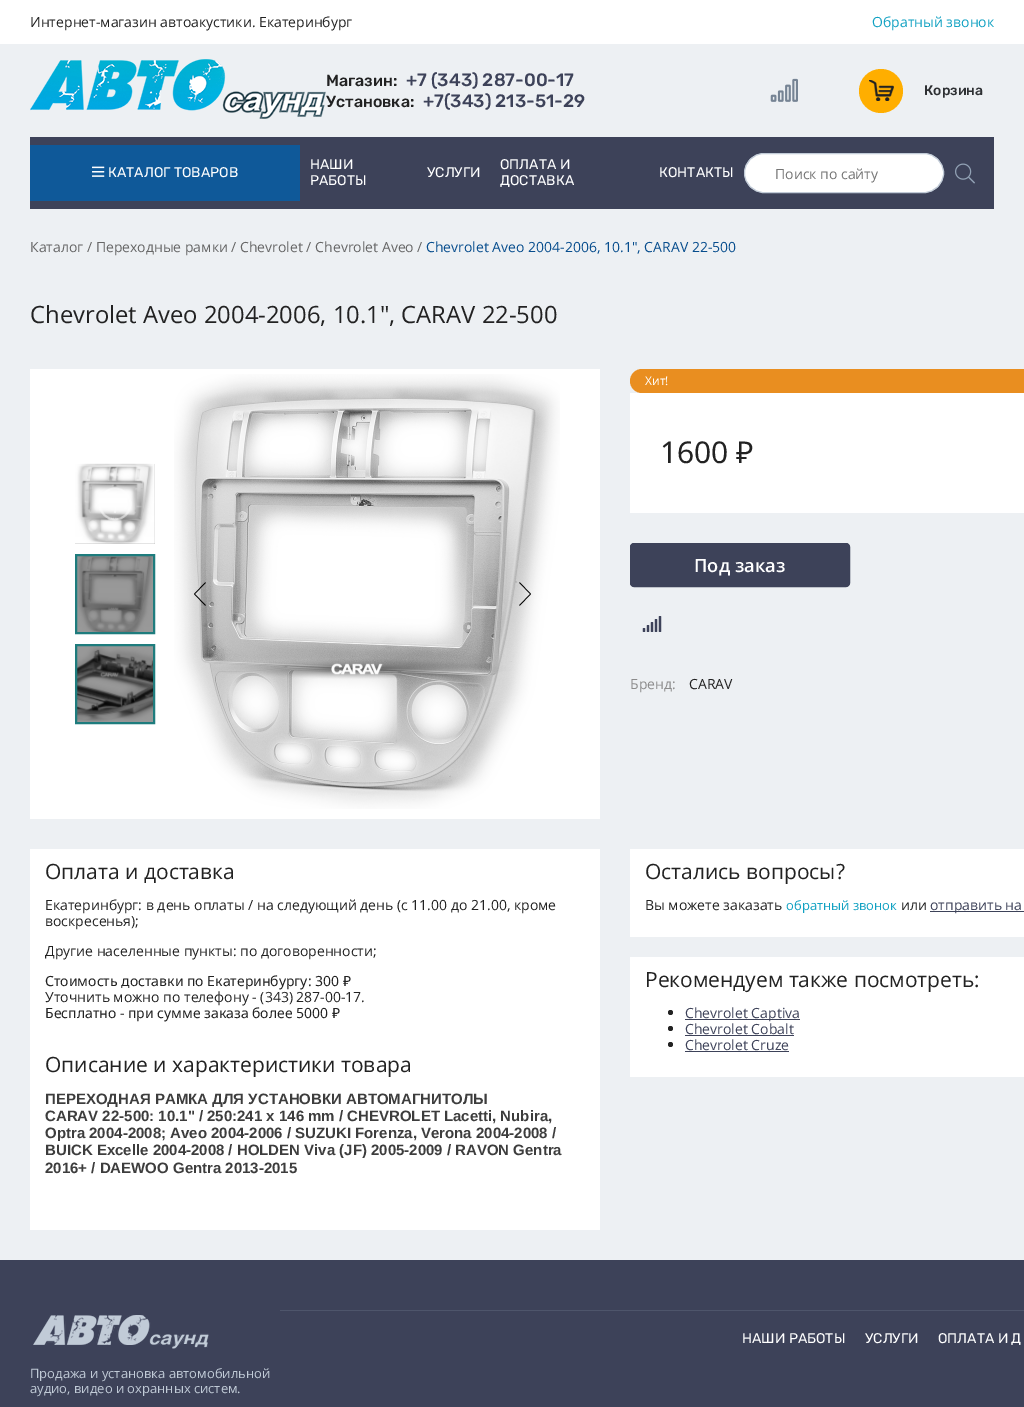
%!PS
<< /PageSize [1024 1407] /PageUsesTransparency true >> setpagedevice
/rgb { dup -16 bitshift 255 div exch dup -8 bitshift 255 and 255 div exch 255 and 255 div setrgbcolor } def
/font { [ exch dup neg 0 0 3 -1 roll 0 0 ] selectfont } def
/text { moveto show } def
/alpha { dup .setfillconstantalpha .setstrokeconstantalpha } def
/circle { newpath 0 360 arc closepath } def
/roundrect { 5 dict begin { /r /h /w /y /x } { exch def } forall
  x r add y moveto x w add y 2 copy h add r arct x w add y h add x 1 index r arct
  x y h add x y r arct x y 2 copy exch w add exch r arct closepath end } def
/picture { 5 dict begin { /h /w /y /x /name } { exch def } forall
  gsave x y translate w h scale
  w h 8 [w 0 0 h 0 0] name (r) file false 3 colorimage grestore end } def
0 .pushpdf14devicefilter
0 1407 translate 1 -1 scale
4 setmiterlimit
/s1 { /OpenSans-Regular 14 font 16#222222 rgb } def
/s2 { /OpenSans-Regular 14 font 16#11A1C2 rgb } def
/s3 { /Rubik-Medium 16 font 16#222222 rgb } def
/s4 { /Rubik-Medium 18 font 16#3D4259 rgb } def
/s5 { /Rubik-Medium 14 font 16#2E3033 rgb } def
/s6 { /Rubik-Regular 14 font 16#FFFFFF rgb } def
/s7 { /OpenSans-Regular 14 font 16#757575 rgb } def
/s8 { /OpenSans-Regular 14 font 16#666666 rgb } def
/s9 { /OpenSans-Regular 14 font 16#074D8D rgb } def
/s10 { /OpenSans-Regular 23.8 font 16#222222 rgb } def
/s11 { /OpenSans-Regular 12 font 16#FFFFFF rgb } def
/s12 { /NotoSans-Regular 30 font 16#222222 rgb } def
/s13 { /OpenSans-SemiBold 18.25 font 16#FFFFFF rgb } def
/s14 { /OpenSans-Regular 14 font 16#8B8B8B rgb } def
/s15 { /OpenSans-Regular 21 font 16#222222 rgb } def
/s16 { /NotoSans-Regular 14 font 16#222222 rgb } def
/s17 { /LiberationSans-Bold 15 font 16#3D3D3D rgb } def
/s18 { /OpenSans-Regular 13 font 16#11A1C2 rgb } def
/s19 { /OpenSans-Regular 14 font 16#3D4259 rgb } def
/s20 { /OpenSans-Regular 13 font 16#C1CBD7 rgb } def
16#EDF0F3 rgb
0 0 1024 1407 rectfill
16#FFFFFF rgb
0 0 1024 44 rectfill
s1
(Интернет-магазин автоакустики. Екатеринбург) 30 27 text
s2
(Обратный звонок) 872 27 text
(pic1.raw) 30 59 296 60 picture
s3
(Магазин:) 326 86 text
s4
(+7 \(343\) 287-00-17) 406 86 text
s3
(Установка:) 326 107 text
s4
(+7\(343\) 213-51-29) 423 107 text
(pic2.raw) 770 78 28 24 picture
16#FFAE00 rgb
881 91 22 circle fill
(pic3.raw) 869 80 25 21 picture
s5
(Корзина) 924 95 text
16#3D4259 rgb
30 137 964 72 rectfill
16#0F5999 rgb
30 145 270 56 rectfill
(pic4.raw) 92 166 13 11 picture
s6
(КАТАЛОГ ТОВАРОВ) 108 177 text
(НАШИ) 310 169 text
(РАБОТЫ) 310 185 text
(УСЛУГИ) 427 177 text
(ОПЛАТА И) 500 169 text
(ДОСТАВКА) 500 185 text
(КОНТАКТЫ) 659 177 text
744.5 153.5 199 39 19.5 roundrect gsave fill grestore
16#C1CBD7 rgb
stroke
s7
(Поиск по сайту) 775 179 text
(pic5.raw) 955 163 20 21 picture
s8
(Каталог / Переходные рамки / Chevrolet / Chevrolet Aveo /) 30 252 text
s9
(Chevrolet Aveo 2004-2006, 10.1", CARAV 22-500) 426 252 text
s10
(Chevrolet Aveo 2004-2006, 10.1", CARAV 22-500) 30 323 text
16#FFFFFF rgb
30 369 570 450 rectfill
(pic6.raw) 75 463 80 81 picture
0.35 alpha
2 setlinewidth
76 465 78 78 rectstroke
1.9 setlinewidth
115 504 15.5 circle stroke
0.33 alpha
114 511 2 2 rectfill
1 alpha
16#000000 rgb
77 556 76 76 rectfill
(pic7.raw) 77 556 76 76 picture
16#1E7C7D rgb
2 setlinewidth
76 555 78 78 rectstroke
16#000000 rgb
77 646 76 76 rectfill
(pic8.raw) 74 644 79 80 picture
16#1E7C7D rgb
76 645 78 78 rectstroke
(pic9.raw) 174 374 386 435 picture
16#000000 rgb
0.7 setlinewidth
205.5 582.5 moveto 194.5 594 lineto 205.5 605.5 lineto stroke
519.5 582.5 moveto 530.5 594 lineto 519.5 605.5 lineto stroke
16#E98E20 rgb
630 369 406 24 12 roundrect fill
s11
(Хит!) 645 385 text
630 393 394 120 rectfill
s12
(1600 ₽) 660 463 text
16#3D4259 rgb
630.5 543.5 219 43 3.5 roundrect gsave fill grestore
1 setlinewidth
stroke
s13
(Под заказ) 694 572 text
(pic10.raw) 642 616 20 16 picture
s14
(Бренд:) 630 689 text
s1
(CARAV) 689 689 text
16#FFFFFF rgb
30 849 570 381 rectfill
s15
(Оплата и доставка) 45 879 text
s1
(Екатеринбург: в день оплаты / на следующий день \(с 11.00 до 21.00, кроме) 45 910 text
(воскресенья\);) 45 926 text
(Другие населенные пункты: по договоренности;) 45 956 text
s16
(Стоимость доставки по Екатеринбургу: 300 ₽) 45 986 text
s1
(Уточнить можно по телефону - \(343\) 287-00-17.) 45 1002 text
s16
(Бесплатно - при сумме заказа более 5000 ₽) 45 1018 text
s15
(Описание и характеристики товара) 45 1072 text
s17
(ПЕРЕХОДНАЯ РАМКА ДЛЯ УСТАНОВКИ АВТОМАГНИТОЛЫ) 45 1104 text
(CARAV 22-500: 10.1" / 250:241 x 146 mm / CHEVROLET Lacetti, Nubira,) 45 1121 text
(Optra 2004-2008; Aveo 2004-2006 / SUZUKI Forenza, Verona 2004-2008 /) 45 1138 text
(BUICK Excelle 2004-2008 / HOLDEN Viva \(JF\) 2005-2009 / RAVON Gentra) 45 1155 text
(2016+ / DAEWOO Gentra 2013-2015) 45 1173 text
16#FFFFFF rgb
630 849 394 88 rectfill
s15
(Остались вопросы?) 645 879 text
s1
(Вы можете заказать) 645 910 text
s18
(обратный звонок) 786 910 text
s1
(или) 901 910 text
16#3D4259 rgb
930 911 94 1 rectfill
(отправить на) 930 910 text
16#FFFFFF rgb
630 957 394 120 rectfill
s15
(Рекомендуем также посмотреть:) 645 987 text
670.5 1012.5 2.5 circle fill
16#3D4259 rgb
685 1019 115 1 rectfill
s19
(Chevrolet Captiva) 685 1018 text
16#222222 rgb
670.5 1028.5 2.5 circle fill
s19
(Chevrolet Cobalt) 685 1034 text
685 1035 109 1 rectfill
16#222222 rgb
670.5 1044.5 2.5 circle fill
s19
(Chevrolet Cruze) 685 1050 text
685 1051 104 1 rectfill
0 1260 1024 147 rectfill
16#4E556B rgb
280 1310 744 1 rectfill
s6
(НАШИ РАБОТЫ) 742 1343 text
(УСЛУГИ) 865 1343 text
(ОПЛАТА И Д) 938 1343 text
(pic11.raw) 33 1315 176 34 picture
s20
(Продажа и установка автомобильной) 30 1378 text
(аудио, видео и охранных систем.) 30 1393 text
.poppdf14devicefilter showpage
